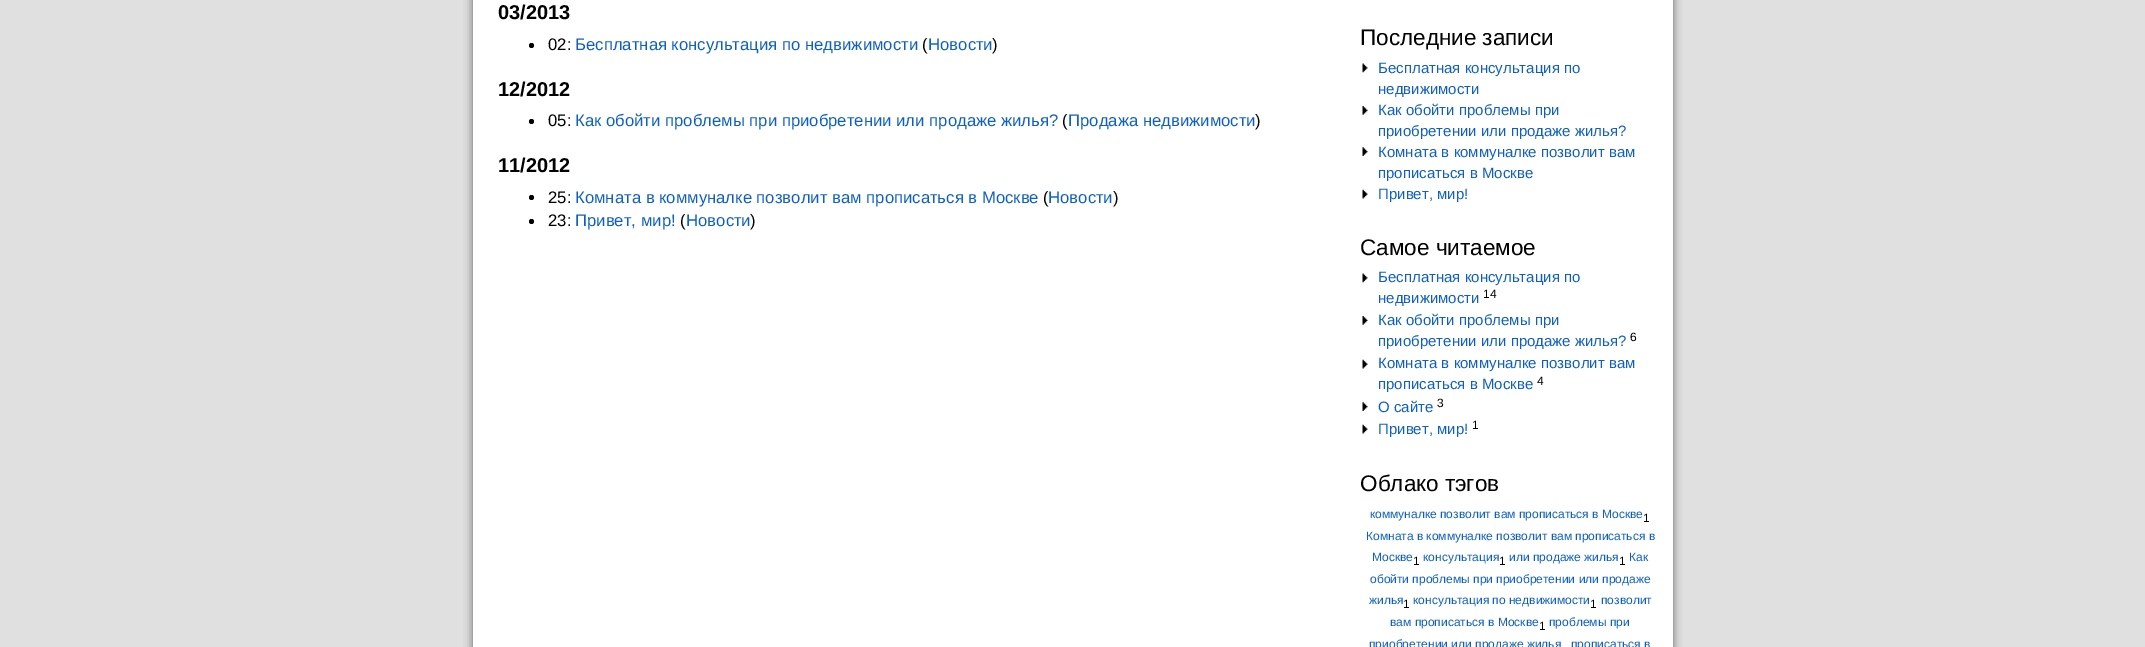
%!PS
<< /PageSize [2145 647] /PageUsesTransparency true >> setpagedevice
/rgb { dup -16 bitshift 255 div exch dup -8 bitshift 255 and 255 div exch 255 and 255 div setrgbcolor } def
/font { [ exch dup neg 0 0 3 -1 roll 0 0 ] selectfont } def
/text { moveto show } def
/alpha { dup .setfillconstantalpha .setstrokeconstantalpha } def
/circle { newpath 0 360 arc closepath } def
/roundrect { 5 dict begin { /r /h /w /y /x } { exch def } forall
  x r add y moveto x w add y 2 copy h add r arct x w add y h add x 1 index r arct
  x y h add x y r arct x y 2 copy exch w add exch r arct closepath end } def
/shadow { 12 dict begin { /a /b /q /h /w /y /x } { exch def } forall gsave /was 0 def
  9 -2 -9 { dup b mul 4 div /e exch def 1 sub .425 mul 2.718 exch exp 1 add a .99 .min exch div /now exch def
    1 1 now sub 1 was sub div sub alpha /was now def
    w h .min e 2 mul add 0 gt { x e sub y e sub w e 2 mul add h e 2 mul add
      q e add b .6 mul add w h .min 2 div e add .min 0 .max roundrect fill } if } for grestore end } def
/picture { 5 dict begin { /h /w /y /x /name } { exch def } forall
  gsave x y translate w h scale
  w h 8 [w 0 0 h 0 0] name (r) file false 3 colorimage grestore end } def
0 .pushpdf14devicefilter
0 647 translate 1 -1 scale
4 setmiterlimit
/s1 { /LiberationSans-Bold 20 font 16#000000 rgb } def
/s2 { /LiberationSans-Regular 16.7 font 16#000000 rgb } def
/s3 { /LiberationSans-Regular 16.7 font 16#0E5FBF rgb } def
/s4 { /LiberationSans-Regular 22.5 font 16#000000 rgb } def
/s5 { /LiberationSans-Regular 15 font 16#0E5FBF rgb } def
/s6 { /LiberationSans-Regular 12 font 16#000000 rgb } def
/s7 { /LiberationSans-Regular 12 font 16#0E5FBF rgb } def
16#E0E0E0 rgb
0 0 2145 647 rectfill
16#606060 rgb
473 -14 1200 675 0 4.5 1 shadow
16#FFFFFF rgb
473 0 1200 647 rectfill
s1
(03/2013) 498 19 text
531.5 45.5 2.5 circle fill
s2
(02:) 548 50 text
s3
(Бесплатная консультация по недвижимости) 575 50 text
s2
(\() 922 50 text
s3
(Новости) 928 50 text
s2
(\)) 992 50 text
s1
(12/2012) 498 96 text
531.5 121.5 2.5 circle fill
s2
(05:) 548 126 text
s3
(Как обойти проблемы при приобретении или продаже жилья?) 575 126 text
s2
(\() 1062 126 text
s3
(Продажа недвижимости) 1068 126 text
s2
(\)) 1255 126 text
s1
(11/2012) 498 172 text
531.5 197.5 2.5 circle fill
s2
(25:) 548 203 text
s3
(Комната в коммуналке позволит вам прописаться в Москве) 575 203 text
s2
(\() 1043 203 text
s3
(Новости) 1048 203 text
s2
(\)) 1113 203 text
531.5 221.5 2.5 circle fill
(23:) 548 226 text
s3
(Привет, мир!) 575 226 text
s2
(\() 680 226 text
s3
(Новости) 686 226 text
s2
(\)) 750 226 text
s4
(Последние записи) 1360 45 text
(pic1.raw) 1362 63 6 10 picture
s5
(Бесплатная консультация по) 1378 73 text
(недвижимости) 1378 94 text
(pic2.raw) 1362 106 6 9 picture
(Как обойти проблемы при) 1378 115 text
(приобретении или продаже жилья?) 1378 136 text
(pic3.raw) 1362 147 6 9 picture
(Комната в коммуналке позволит вам) 1378 157 text
(прописаться в Москве) 1378 178 text
(pic4.raw) 1362 189 6 10 picture
(Привет, мир!) 1378 199 text
s4
(Самое читаемое) 1360 255 text
(pic1.raw) 1362 273 6 10 picture
s5
(Бесплатная консультация по) 1378 282 text
(недвижимости) 1378 303 text
s6
(14) 1483 298 text
(pic2.raw) 1362 316 6 9 picture
s5
(Как обойти проблемы при) 1378 325 text
(приобретении или продаже жилья?) 1378 346 text
s6
(6) 1630 341 text
(pic4.raw) 1362 359 6 10 picture
s5
(Комната в коммуналке позволит вам) 1378 368 text
(прописаться в Москве) 1378 389 text
s6
(4) 1537 385 text
(pic3.raw) 1362 402 6 9 picture
s5
(О сайте) 1378 412 text
s6
(3) 1437 407 text
(pic4.raw) 1362 424 6 10 picture
s5
(Привет, мир!) 1378 434 text
s6
(1) 1472 429 text
s4
(Облако тэгов) 1360 491 text
s7
(коммуналке позволит вам прописаться в Москве) 1370 518 text
s6
(1) 1643 522 text
s7
(Комната в коммуналке позволит вам прописаться в) 1366 540 text
(Москве) 1372 561 text
s6
(1) 1413 565 text
s7
(консультация) 1423 561 text
s6
(1) 1499 565 text
s7
(или продаже жилья) 1509 561 text
s6
(1) 1619 565 text
s7
(Как) 1629 561 text
(обойти проблемы при приобретении или продаже) 1370 583 text
(жилья) 1369 604 text
s6
(1) 1403 608 text
s7
(консультация по недвижимости) 1413 604 text
s6
(1) 1590 608 text
s7
(позволит) 1601 604 text
(вам прописаться в Москве) 1390 626 text
s6
(1) 1539 630 text
s7
(проблемы при) 1549 626 text
(приобретении или продаже жилья) 1369 648 text
(прописаться в) 1571 648 text
.poppdf14devicefilter showpage
